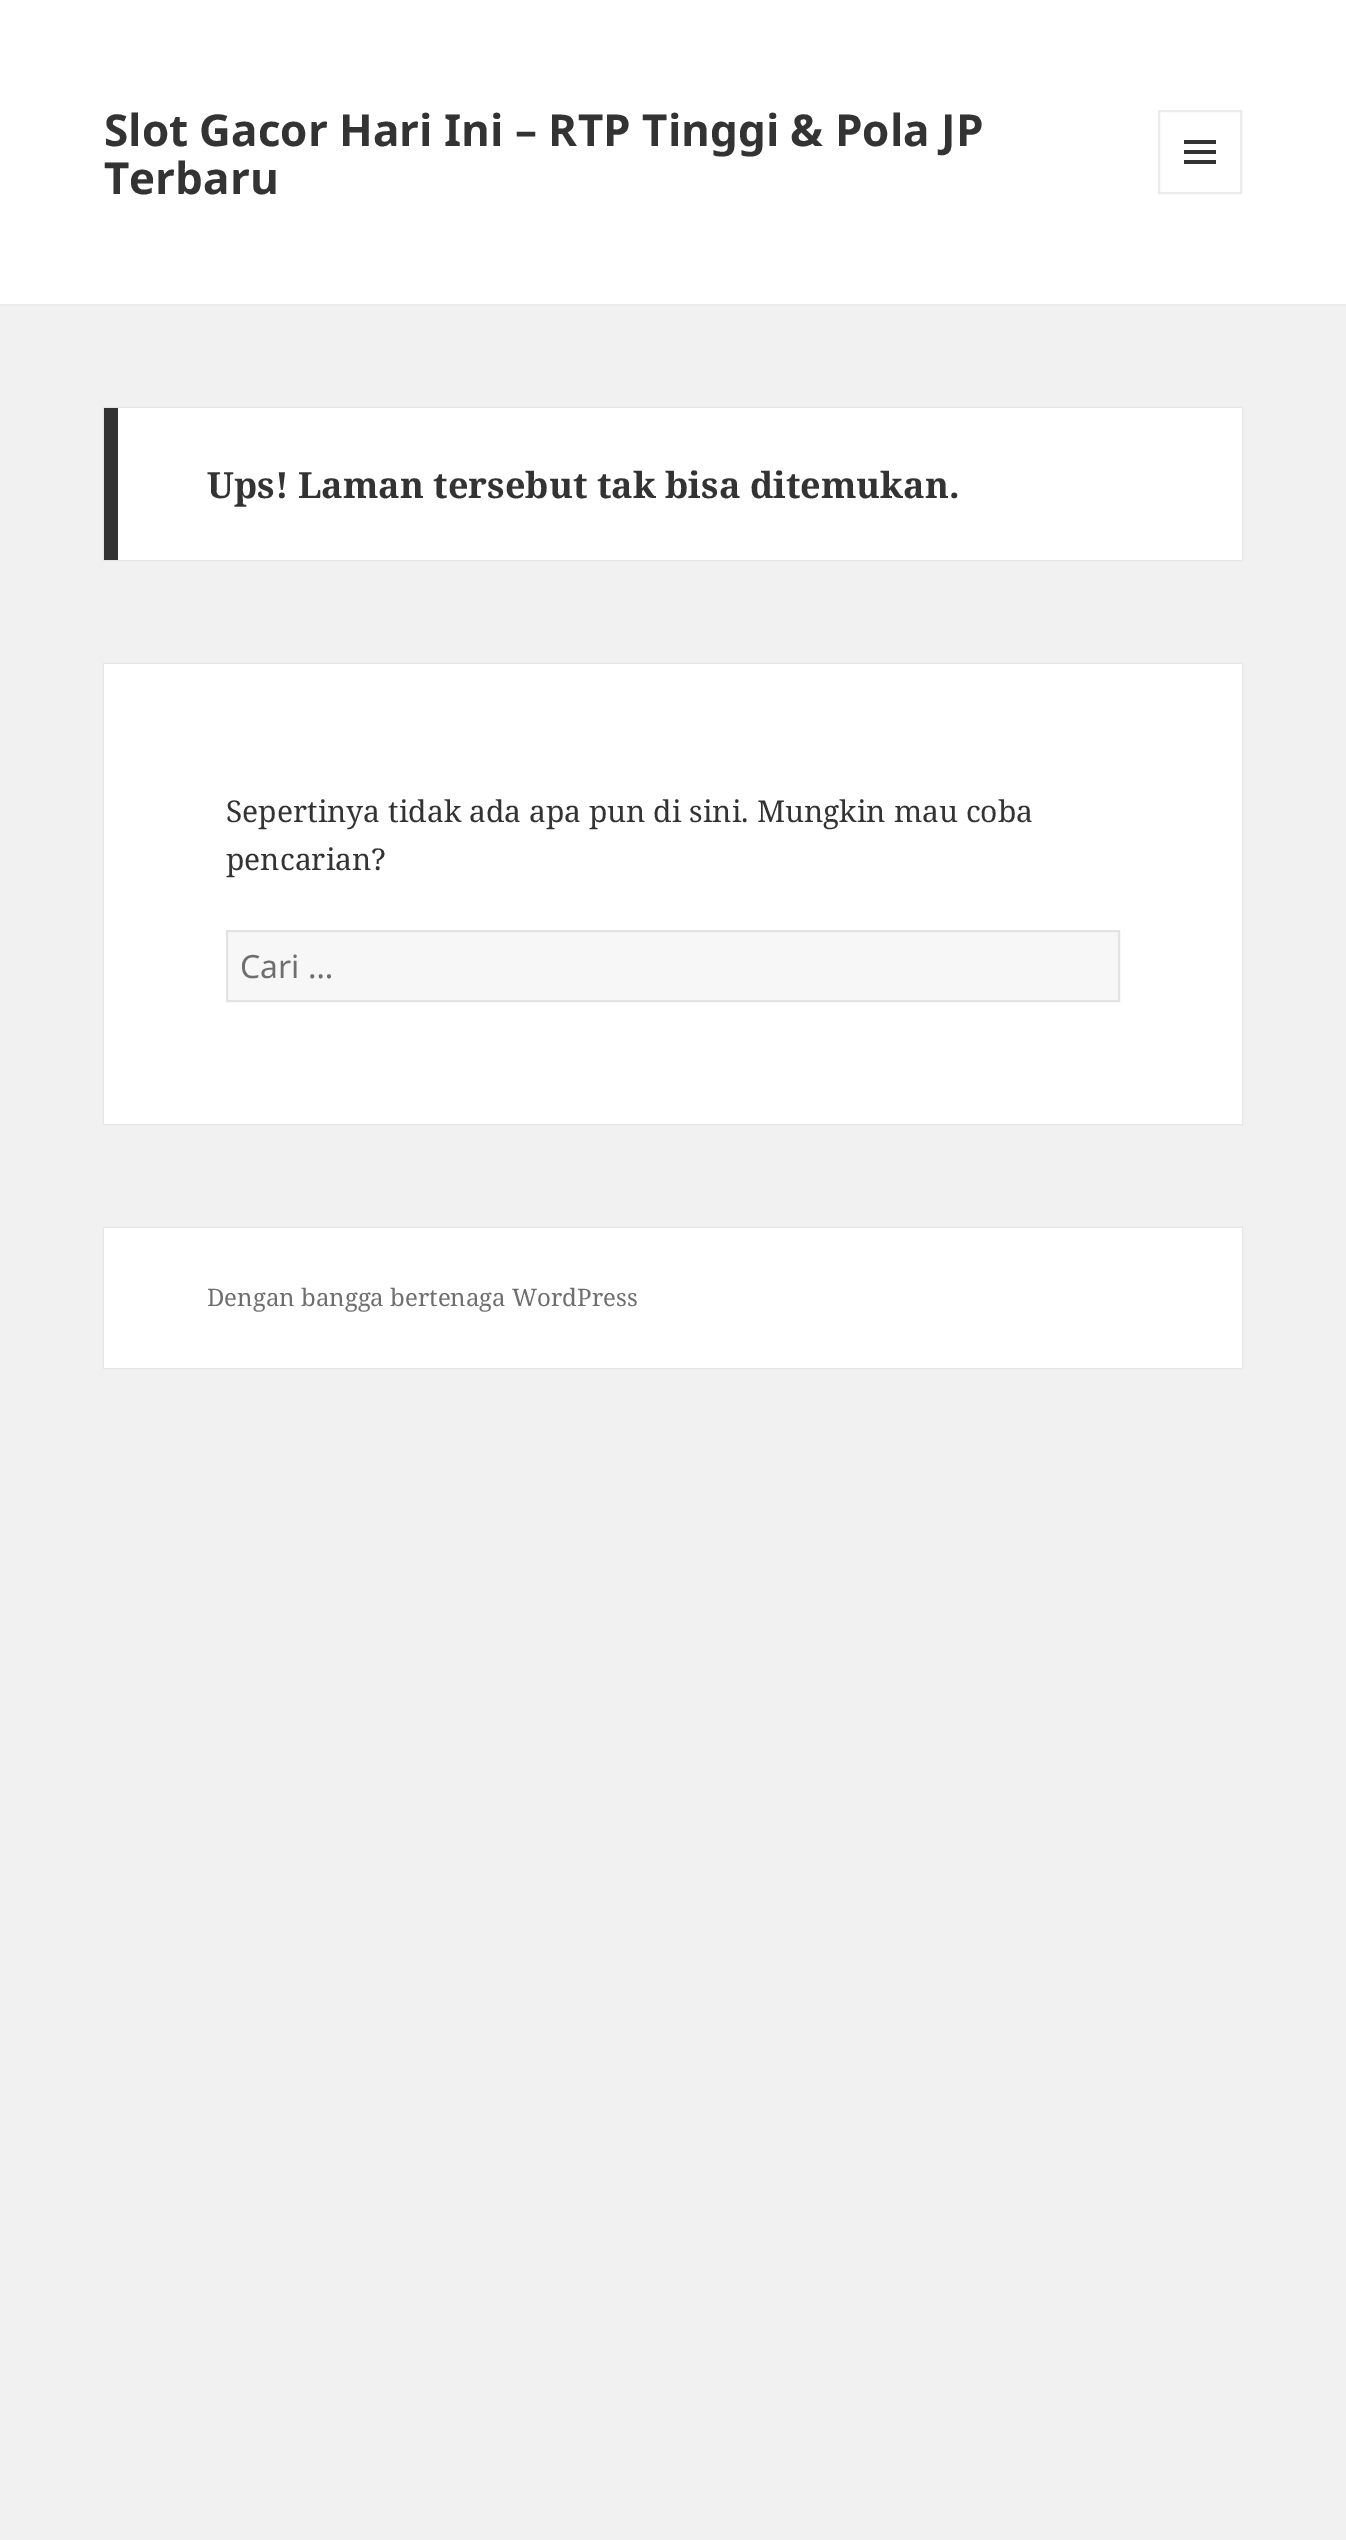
%!PS
<< /PageSize [1346 2540] /PageUsesTransparency true >> setpagedevice
/rgb { dup -16 bitshift 255 div exch dup -8 bitshift 255 and 255 div exch 255 and 255 div setrgbcolor } def
/font { [ exch dup neg 0 0 3 -1 roll 0 0 ] selectfont } def
/text { moveto show } def
/alpha { dup .setfillconstantalpha .setstrokeconstantalpha } def
/roundrect { 5 dict begin { /r /h /w /y /x } { exch def } forall
  x r add y moveto x w add y 2 copy h add r arct x w add y h add x 1 index r arct
  x y h add x y r arct x y 2 copy exch w add exch r arct closepath end } def
/shadow { 12 dict begin { /a /b /q /h /w /y /x } { exch def } forall gsave /was 0 def
  9 -2 -9 { dup b mul 4 div /e exch def 1 sub .425 mul 2.718 exch exp 1 add a .99 .min exch div /now exch def
    1 1 now sub 1 was sub div sub alpha /was now def
    w h .min e 2 mul add 0 gt { x e sub y e sub w e 2 mul add h e 2 mul add
      q e add b .6 mul add w h .min 2 div e add .min 0 .max roundrect fill } if } for grestore end } def
/picture { 5 dict begin { /h /w /y /x /name } { exch def } forall
  gsave x y translate w h scale
  w h 8 [w 0 0 h 0 0] name (r) file false 3 colorimage grestore end } def
0 .pushpdf14devicefilter
0 2540 translate 1 -1 scale
4 setmiterlimit
/s1 { /NotoSans-Bold 44 font 16#333333 rgb } def
/s2 { /NotoSerif-Bold 36 font 16#333333 rgb } def
/s3 { /NotoSerif-Regular 30 font 16#333333 rgb } def
/s4 { /NotoSans-Regular 32 font 16#6E6E6E rgb } def
/s5 { /NotoSerif-Regular 24 font 16#6E6E6E rgb } def
16#F1F1F1 rgb
0 0 1346 2540 rectfill
16#FFFFFF rgb
0 0 1346 304 rectfill
16#EBEBEB rgb
0 304 1346 2 rectfill
s1
(Slot Gacor Hari Ini – RTP Tinggi & Pola JP) 104 146 text
(Terbaru) 104 194 text
16#EBEBEB rgb
2 setlinewidth
1159 111 82 82 rectstroke
(pic1.raw) 1184 140 32 24 picture
16#000000 rgb
104 408 1138 152 0 1 0.15 shadow
16#FFFFFF rgb
118 408 1124 152 rectfill
16#333333 rgb
104 408 14 152 rectfill
s2
(Ups! Laman tersebut tak bisa ditemukan.) 207 498 text
16#000000 rgb
104 664 1138 460 0 1 0.15 shadow
16#FFFFFF rgb
104 664 1138 460 rectfill
s3
(Sepertinya tidak ada apa pun di sini. Mungkin mau coba) 226 822 text
(pencarian?) 226 870 text
16#F7F7F7 rgb
227 931 moveto 1119 931 lineto 1119 1001 lineto 227 1001 lineto closepath gsave fill grestore
16#E3E3E3 rgb
stroke
s4
(Cari …) 240 978 text
16#000000 rgb
104 1228 1138 140 0 1 0.15 shadow
16#FFFFFF rgb
104 1228 1138 140 rectfill
s5
(Dengan bangga bertenaga WordPress) 207 1306 text
.poppdf14devicefilter showpage
